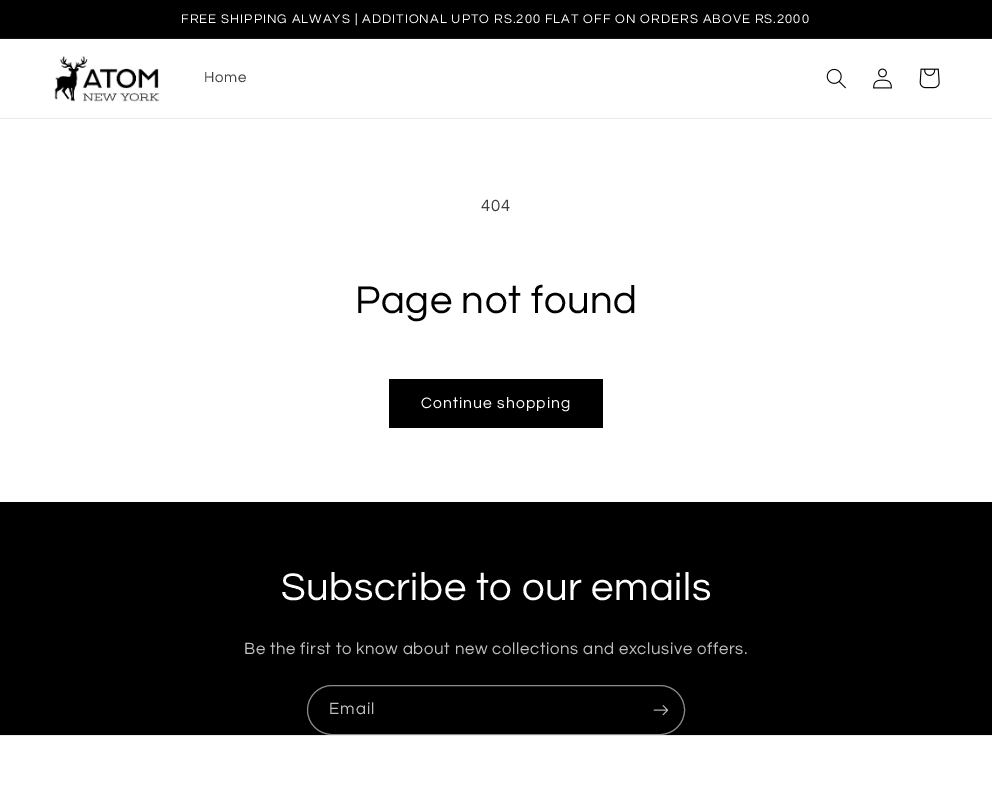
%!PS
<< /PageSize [992 807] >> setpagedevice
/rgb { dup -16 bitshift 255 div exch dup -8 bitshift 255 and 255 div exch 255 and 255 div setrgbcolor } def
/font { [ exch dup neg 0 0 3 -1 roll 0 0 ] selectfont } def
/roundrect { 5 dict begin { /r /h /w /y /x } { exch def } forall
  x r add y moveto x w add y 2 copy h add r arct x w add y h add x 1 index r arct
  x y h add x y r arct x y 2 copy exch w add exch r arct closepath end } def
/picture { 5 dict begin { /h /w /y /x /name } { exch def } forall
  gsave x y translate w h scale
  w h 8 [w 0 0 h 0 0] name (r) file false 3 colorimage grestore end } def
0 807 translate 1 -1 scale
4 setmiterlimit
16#FFFFFF rgb
0 0 992 807 rectfill
16#000000 rgb
0 0 992 38 rectfill
16#141414 rgb
0 38 992 1 rectfill
/Questrial-Regular 13 font
16#FFFFFF rgb
181 23 moveto 1.05 0 (FREE SHIPPING ALWAYS | ADDITIONAL UPTO RS.200 FLAT OFF ON ORDERS ABOVE RS.2000) ashow
16#EBEBEB rgb
0 118 992 1 rectfill
(pic1.raw) 54 56 106 46 picture
/Questrial-Regular 15 font
16#404040 rgb
204 82 moveto 0.63 0 (Home) ashow
(pic2.raw) 826 68 20 21 picture
(pic3.raw) 873 68 19 21 picture
(pic4.raw) 919 68 21 21 picture
/Questrial-Regular 16.8 font
481 211 moveto 0.63 0 (404) ashow
/Questrial-Regular 40 font
16#000000 rgb
355 313 moveto 0.6 0 (Page not found) ashow
389 379 214 49 rectfill
/Questrial-Regular 15.75 font
16#FFFFFF rgb
421 408 moveto 1.05 0 (Continue shopping) ashow
16#000000 rgb
0 502 992 233 rectfill
/Questrial-Regular 40 font
16#FFFFFF rgb
281 600 moveto 0.6 0 (Subscribe to our emails) ashow
/Questrial-Regular 16.8 font
16#BFBFBF rgb
244 654 moveto 0.63 0 (Be the first to know about new collections and exclusive offers.) ashow
16#8C8C8C rgb
307.5 685.5 377 49 24.5 roundrect stroke
16#BFBFBF rgb
329 714 moveto 1.05 0 (Email) ashow
(pic5.raw) 653 705 16 11 picture
16#EBEBEB rgb
0 735 992 1 rectfill
showpage
